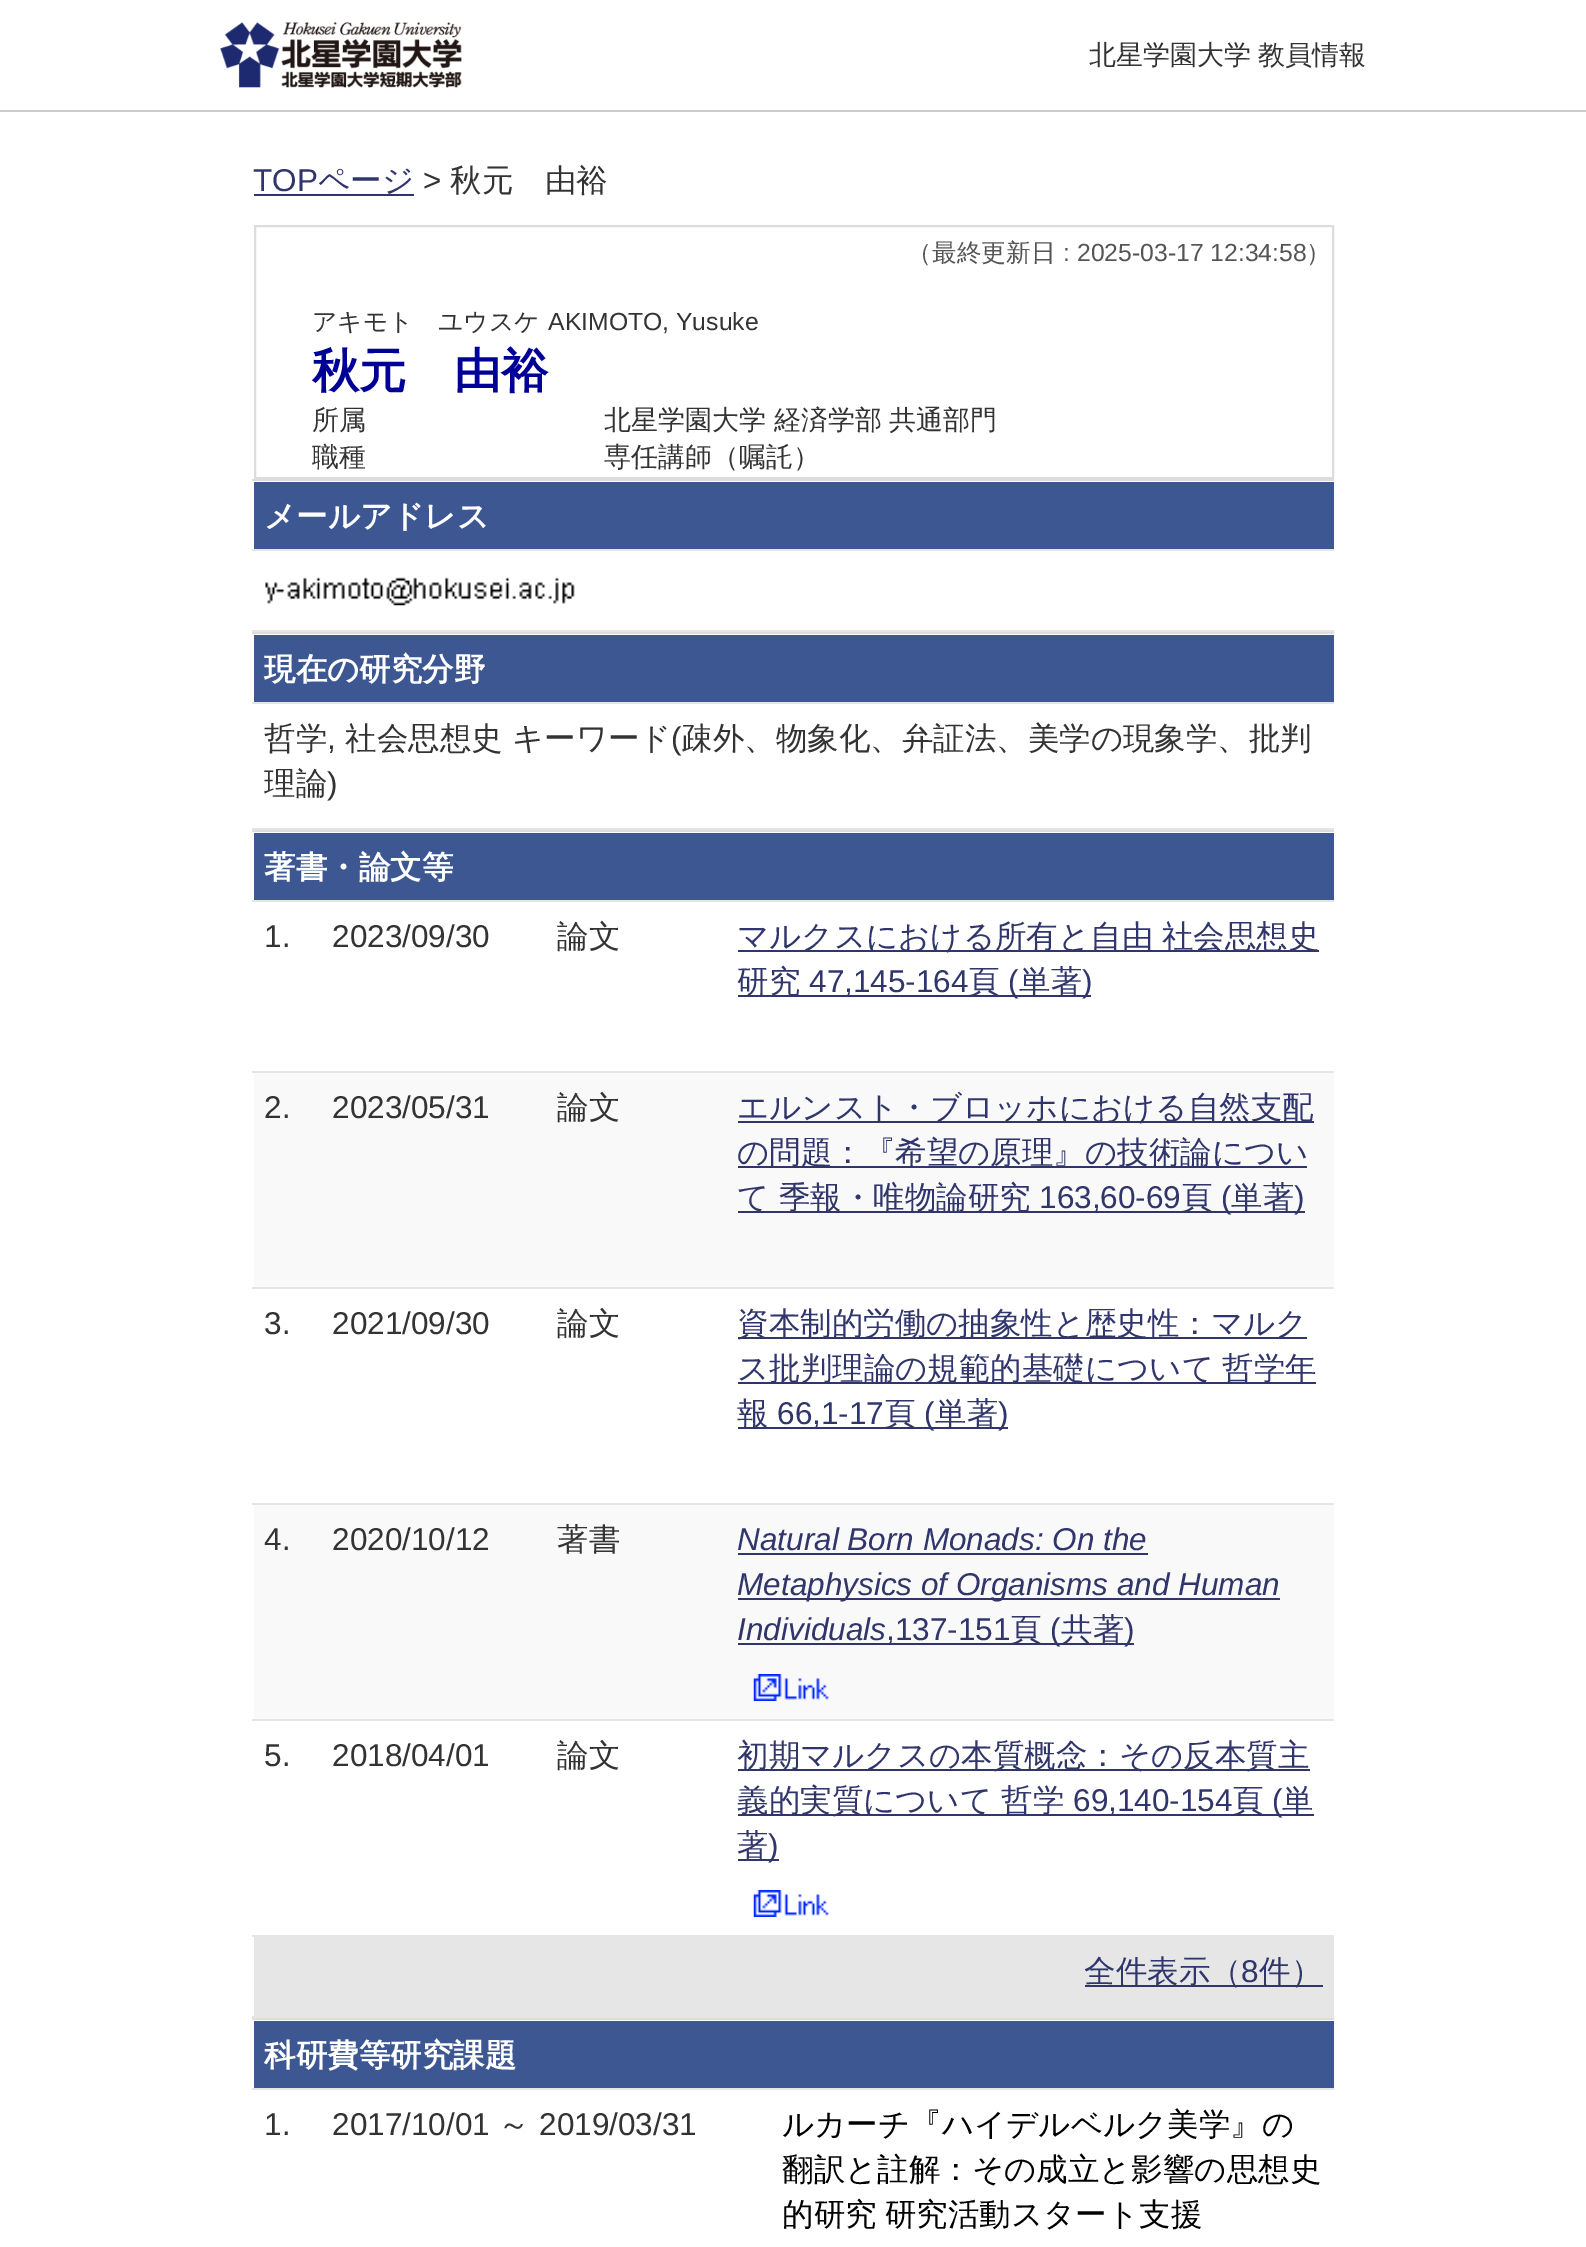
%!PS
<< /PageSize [1586 2247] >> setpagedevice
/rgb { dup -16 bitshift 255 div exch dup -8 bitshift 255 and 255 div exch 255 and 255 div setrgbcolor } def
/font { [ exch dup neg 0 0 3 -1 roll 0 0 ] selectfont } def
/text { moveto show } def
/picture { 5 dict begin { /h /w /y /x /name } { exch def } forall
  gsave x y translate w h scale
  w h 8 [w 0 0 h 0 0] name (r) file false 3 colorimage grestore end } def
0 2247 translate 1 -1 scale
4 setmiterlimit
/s1 { /LiberationSans-Regular 31.5 font 16#30356C rgb } def
/s2 { /WenQuanYiZenHei-Medium 31.5 font 16#30356C rgb } def
/s3 { /LiberationSans-Regular 31.5 font 16#333333 rgb } def
/s4 { /WenQuanYiZenHei-Medium 31.5 font 16#333333 rgb } def
/s5 { /WenQuanYiZenHei-Medium 24.75 font 16#555555 rgb } def
/s6 { /LiberationSans-Regular 24.75 font 16#555555 rgb } def
/s7 { /WenQuanYiZenHei-Medium 24.75 font 16#333333 rgb } def
/s8 { /LiberationSans-Regular 24.75 font 16#333333 rgb } def
/s9 { /WenQuanYiZenHei-Bold 47.25 font 16#000099 rgb } def
/s10 { /WenQuanYiZenHei-Medium 27 font 16#333333 rgb } def
/s11 { /WenQuanYiZenHei-Bold 31.5 font 16#FFFFFF rgb } def
/s12 { /LiberationSans-Italic 31.5 font 16#30356C rgb } def
/s13 { /WenQuanYiZenHei-Medium 31.5 font 16#000000 rgb } def
16#FFFFFF rgb
0 0 1586 2247 rectfill
16#CCCCCC rgb
0 110 1586 2 rectfill
(pic1.raw) 220 22 242 66 picture
/WenQuanYiZenHei-Medium 27 font
16#333333 rgb
1089 64 moveto -1 0 32 (北星学園大学 教員情報) widthshow
s1
(TOP) 253 191 text
254 194 160 2 rectfill
s2
(ページ) 318 191 text
s3
(>) 423 191 text
s4
(秋元　由裕) 450 191 text
16#DDDDDD rgb
2 setlinewidth
255 226 1078 252 rectstroke
s5
(（最終更新日) 907 261 text
s6
(: 2025-03-17 12:34:58) 1063 261 text
s5
(）) 1306 261 text
s7
(アキモト　ユウスケ) 312 330 text
s8
(AKIMOTO, Yusuke) 548 330 text
s9
(秋元　由裕) 312 387 text
s10
(所属) 312 429 text
(北星学園大学) 604 429 text
774 429 moveto -1 0 32 (経済学部 共通部門) widthshow
(職種) 312 466 text
(専任講師（嘱託）) 604 466 text
16#3D5793 rgb
254 482 1080 67 rectfill
16#DDDDDD rgb
252 479 1082 2 rectfill
16#E5E5E5 rgb
252 549 1082 2 rectfill
s11
(メールアドレス) 264 527 text
16#E5E5E5 rgb
252 630 1082 2 rectfill
(pic2.raw) 265 577 310 29 picture
16#3D5793 rgb
254 635 1080 67 rectfill
16#DDDDDD rgb
252 632 1082 2 rectfill
16#E5E5E5 rgb
252 702 1082 2 rectfill
s11
(現在の研究分野) 264 680 text
16#E5E5E5 rgb
252 828 1082 2 rectfill
s4
(哲学) 264 749 text
s3
(,) 327 749 text
s4
(社会思想史 キーワード) 345 749 text
s3
(\() 671 749 text
s4
(疎外、物象化、弁証法、美学の現象学、批判) 681 749 text
(理論) 264 794 text
s3
(\)) 327 794 text
16#3D5793 rgb
254 833 1080 67 rectfill
16#DDDDDD rgb
252 830 1082 2 rectfill
16#E5E5E5 rgb
252 900 1082 2 rectfill
s11
(著書・論文等) 264 878 text
s3
(1.) 264 947 text
(2023/09/30) 332 947 text
s4
(論文) 557 947 text
16#E5E5E5 rgb
252 1071 1082 2 rectfill
16#30356C rgb
738 950 581 2 rectfill
737 947 moveto -1 0 32 (マルクスにおける所有と自由 社会思想史) widthshow
738 995 353 2 rectfill
(研究) 737 992 text
s1
(47,145-164) 809 992 text
s2
(頁) 968 992 text
s1
(\() 1008 992 text
s2
(単著) 1019 992 text
s1
(\)) 1082 992 text
16#F9F9F9 rgb
254 1073 1080 214 rectfill
s3
(2.) 264 1118 text
(2023/05/31) 332 1118 text
s4
(論文) 557 1118 text
16#E5E5E5 rgb
252 1287 1082 2 rectfill
16#30356C rgb
738 1121 576 2 rectfill
(エルンスト・ブロッホにおける自然支配) 737 1118 text
738 1166 569 2 rectfill
(の問題：『希望の原理』の技術論につい) 737 1163 text
738 1211 567 2 rectfill
(て 季報・唯物論研究) 737 1208 text
s1
(163,60-69) 1039 1208 text
s2
(頁) 1181 1208 text
s1
(\() 1221 1208 text
s2
(単著) 1231 1208 text
s1
(\)) 1294 1208 text
s3
(3.) 264 1334 text
(2021/09/30) 332 1334 text
s4
(論文) 557 1334 text
16#E5E5E5 rgb
252 1503 1082 2 rectfill
16#30356C rgb
738 1337 569 2 rectfill
(資本制的労働の抽象性と歴史性：マルク) 737 1334 text
738 1382 578 2 rectfill
737 1379 moveto -1 0 32 (ス批判理論の規範的基礎について 哲学年) widthshow
738 1427 270 2 rectfill
(報) 737 1424 text
s1
(66,1-17) 777 1424 text
s2
(頁) 884 1424 text
s1
(\() 924 1424 text
s2
(単著) 935 1424 text
s1
(\)) 998 1424 text
16#F9F9F9 rgb
254 1505 1080 214 rectfill
s3
(4.) 264 1550 text
(2020/10/12) 332 1550 text
s4
(著書) 557 1550 text
16#E5E5E5 rgb
252 1719 1082 2 rectfill
s12
(Natural Born Monads: On the) 737 1550 text
738 1553 410 2 rectfill
738 1598 542 2 rectfill
(Metaphysics of Organisms and Human) 737 1595 text
(Individuals) 737 1640 text
738 1643 396 2 rectfill
s1
(,137-151) 886 1640 text
s2
(頁) 1010 1640 text
s1
(\() 1050 1640 text
s2
(共著) 1061 1640 text
s1
(\)) 1124 1640 text
(pic3.raw) 753 1674 76 27 picture
s3
(5.) 264 1766 text
(2018/04/01) 332 1766 text
s4
(論文) 557 1766 text
16#E5E5E5 rgb
252 1935 1082 2 rectfill
16#30356C rgb
738 1769 572 2 rectfill
(初期マルクスの本質概念：その反本質主) 737 1766 text
738 1814 576 2 rectfill
(義的実質について 哲学) 737 1811 text
s1
(69,140-154) 1073 1811 text
s2
(頁) 1232 1811 text
s1
(\() 1272 1811 text
s2
(単) 1282 1811 text
738 1859 41 2 rectfill
(著) 737 1856 text
s1
(\)) 768 1856 text
(pic4.raw) 753 1890 76 27 picture
16#E6E6E6 rgb
254 1937 1080 79 rectfill
16#E5E5E5 rgb
252 2016 1082 2 rectfill
16#30356C rgb
1085 1985 238 2 rectfill
s2
(全件表示（) 1084 1982 text
s1
(8) 1241 1982 text
s2
(件）) 1259 1982 text
16#3D5793 rgb
254 2021 1080 67 rectfill
16#DDDDDD rgb
252 2018 1082 2 rectfill
16#E5E5E5 rgb
252 2088 1082 2 rectfill
s11
(科研費等研究課題) 264 2066 text
s3
(1.) 264 2135 text
(2017/10/01) 332 2135 text
s4
(～) 498 2135 text
s3
(2019/03/31) 539 2135 text
s13
(ルカーチ『ハイデルベルク美学』の) 782 2135 text
(翻訳と註解：その成立と影響の思想史) 782 2180 text
782 2225 moveto -1 0 32 (的研究 研究活動スタート支援) widthshow
showpage
